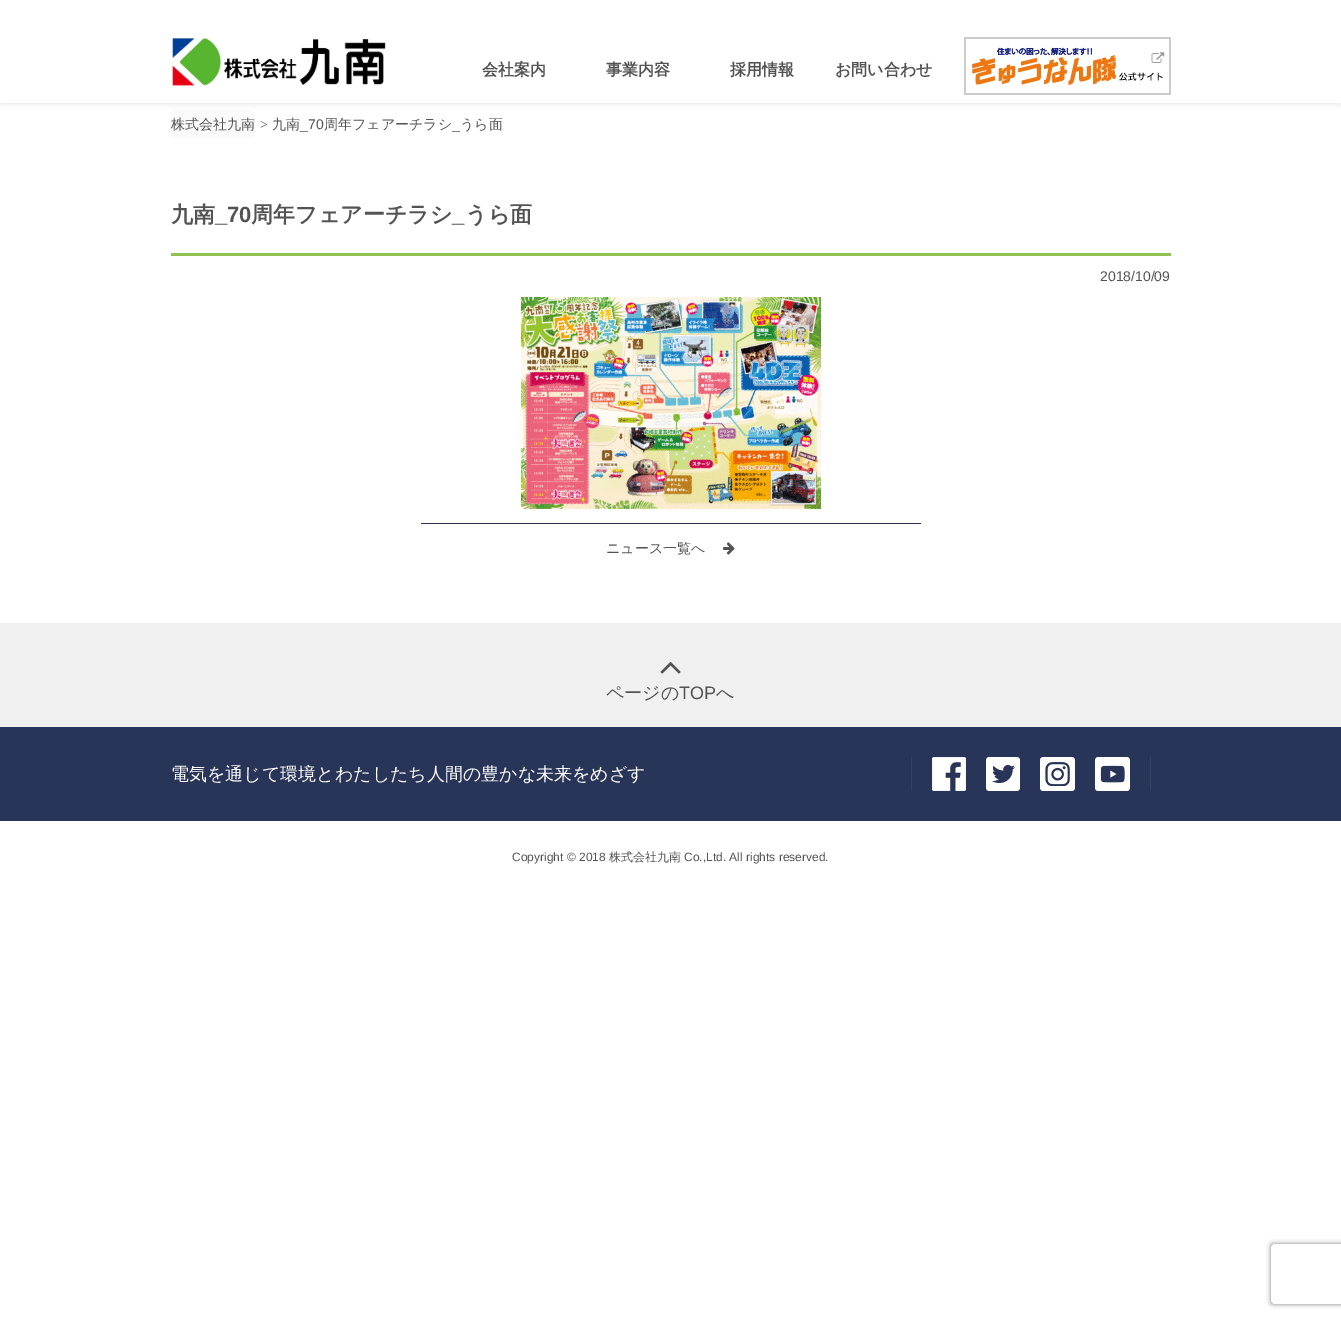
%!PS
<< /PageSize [1341 1318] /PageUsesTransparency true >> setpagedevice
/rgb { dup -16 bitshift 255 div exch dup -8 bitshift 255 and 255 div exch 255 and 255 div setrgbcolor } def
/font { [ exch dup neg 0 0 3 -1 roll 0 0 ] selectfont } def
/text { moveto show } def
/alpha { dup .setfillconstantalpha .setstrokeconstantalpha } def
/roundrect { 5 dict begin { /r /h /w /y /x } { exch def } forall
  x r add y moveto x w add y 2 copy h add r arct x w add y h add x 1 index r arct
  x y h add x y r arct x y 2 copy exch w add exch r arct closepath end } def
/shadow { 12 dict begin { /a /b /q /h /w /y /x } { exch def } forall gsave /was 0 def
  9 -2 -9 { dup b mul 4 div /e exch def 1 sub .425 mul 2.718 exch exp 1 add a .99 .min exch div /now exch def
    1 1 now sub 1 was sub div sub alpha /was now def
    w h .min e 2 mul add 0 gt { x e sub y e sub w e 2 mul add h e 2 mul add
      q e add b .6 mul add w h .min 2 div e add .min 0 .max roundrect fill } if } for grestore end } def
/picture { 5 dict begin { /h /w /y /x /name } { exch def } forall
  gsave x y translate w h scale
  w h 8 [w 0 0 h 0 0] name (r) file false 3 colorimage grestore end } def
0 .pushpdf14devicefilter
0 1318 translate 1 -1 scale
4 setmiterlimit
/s1 { /WenQuanYiZenHei-Bold 16 font 16#535353 rgb } def
/s2 { /WenQuanYiZenHei-Medium 14 font 16#535353 rgb } def
/s3 { /LiberationSerif-Regular 14 font 16#535353 rgb } def
/s4 { /LiberationSans-Regular 14 font 16#535353 rgb } def
/s5 { /WenQuanYiZenHei-Bold 22 font 16#535353 rgb } def
/s6 { /LiberationSans-Bold 22 font 16#535353 rgb } def
/s7 { /WenQuanYiZenHei-Medium 18 font 16#535353 rgb } def
/s8 { /LiberationSans-Regular 18 font 16#535353 rgb } def
/s9 { /WenQuanYiZenHei-Medium 18 font 16#FFFFFF rgb } def
/s10 { /LiberationSans-Regular 12 font 16#535353 rgb } def
/s11 { /WenQuanYiZenHei-Medium 12 font 16#535353 rgb } def
16#FFFFFF rgb
0 0 1341 1318 rectfill
16#FAFAFA rgb
171 110 84 28 5 roundrect fill
gsave
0 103 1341 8 rectclip
16#DEDEDE rgb
0 0 1341 103 0 4 1 shadow
grestore
(pic1.raw) 172 38 214 48 picture
s1
(会社案内) 482 75 text
(事業内容) 606 75 text
(採用情報) 730 75 text
(お問い合わせ) 835 75 text
(pic2.raw) 964 37 207 58 picture
s2
(株式会社九南) 171 129 text
s3
(>) 260 129 text
s2
(九南) 272 129 text
s4
(_70) 300 129 text
s2
(周年フェアーチラシ) 324 129 text
s4
(_) 452 129 text
s2
(うら面) 460 129 text
16#90C24F rgb
171 253 1000 3 rectfill
s5
(九南) 171 222 text
s6
(_70) 215 222 text
s5
(周年フェアーチラシ) 251 222 text
s6
(_) 452 222 text
s5
(うら面) 465 222 text
s4
(2018/10/09) 1100 281 text
(pic3.raw) 521 297 300 212 picture
16#293558 rgb
421 523 500 1 rectfill
s2
(ニュース一覧へ) 606 553 text
(pic4.raw) 723 542 12 13 picture
16#293558 rgb
0 727 1341 94 rectfill
16#F0F0F0 rgb
0 623 1341 104 rectfill
(pic5.raw) 660 662 21 12 picture
s7
(ページの) 606 699 text
s8
(TOP) 679 699 text
s7
(へ) 716 699 text
s9
(電気を通じて環境とわたしたち人間の豊かな未来をめざす) 171 780 text
16#35406C rgb
1150 757 1 34 rectfill
911 757 1 34 rectfill
(pic6.raw) 932 757 34 34 picture
(pic7.raw) 986 757 34 34 picture
(pic8.raw) 1040 757 35 34 picture
(pic9.raw) 1095 757 35 34 picture
s10
(Copyright © 2018) 512 861 text
s11
(株式会社九南) 609 861 text
s10
(Co.,Ltd. All rights reserved.) 684 861 text
gsave
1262 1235 moveto 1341 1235 lineto 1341 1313 lineto 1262 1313 lineto closepath 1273 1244 moveto 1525 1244 lineto 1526 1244 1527 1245 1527 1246 curveto 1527 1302 lineto 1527 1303 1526 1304 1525 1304 curveto 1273 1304 lineto 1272 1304 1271 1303 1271 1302 curveto 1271 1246 lineto 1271 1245 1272 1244 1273 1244 curveto closepath eoclip newpath
16#808080 rgb
1271 1244 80 60 2 2.5 1 shadow
grestore
.poppdf14devicefilter showpage
